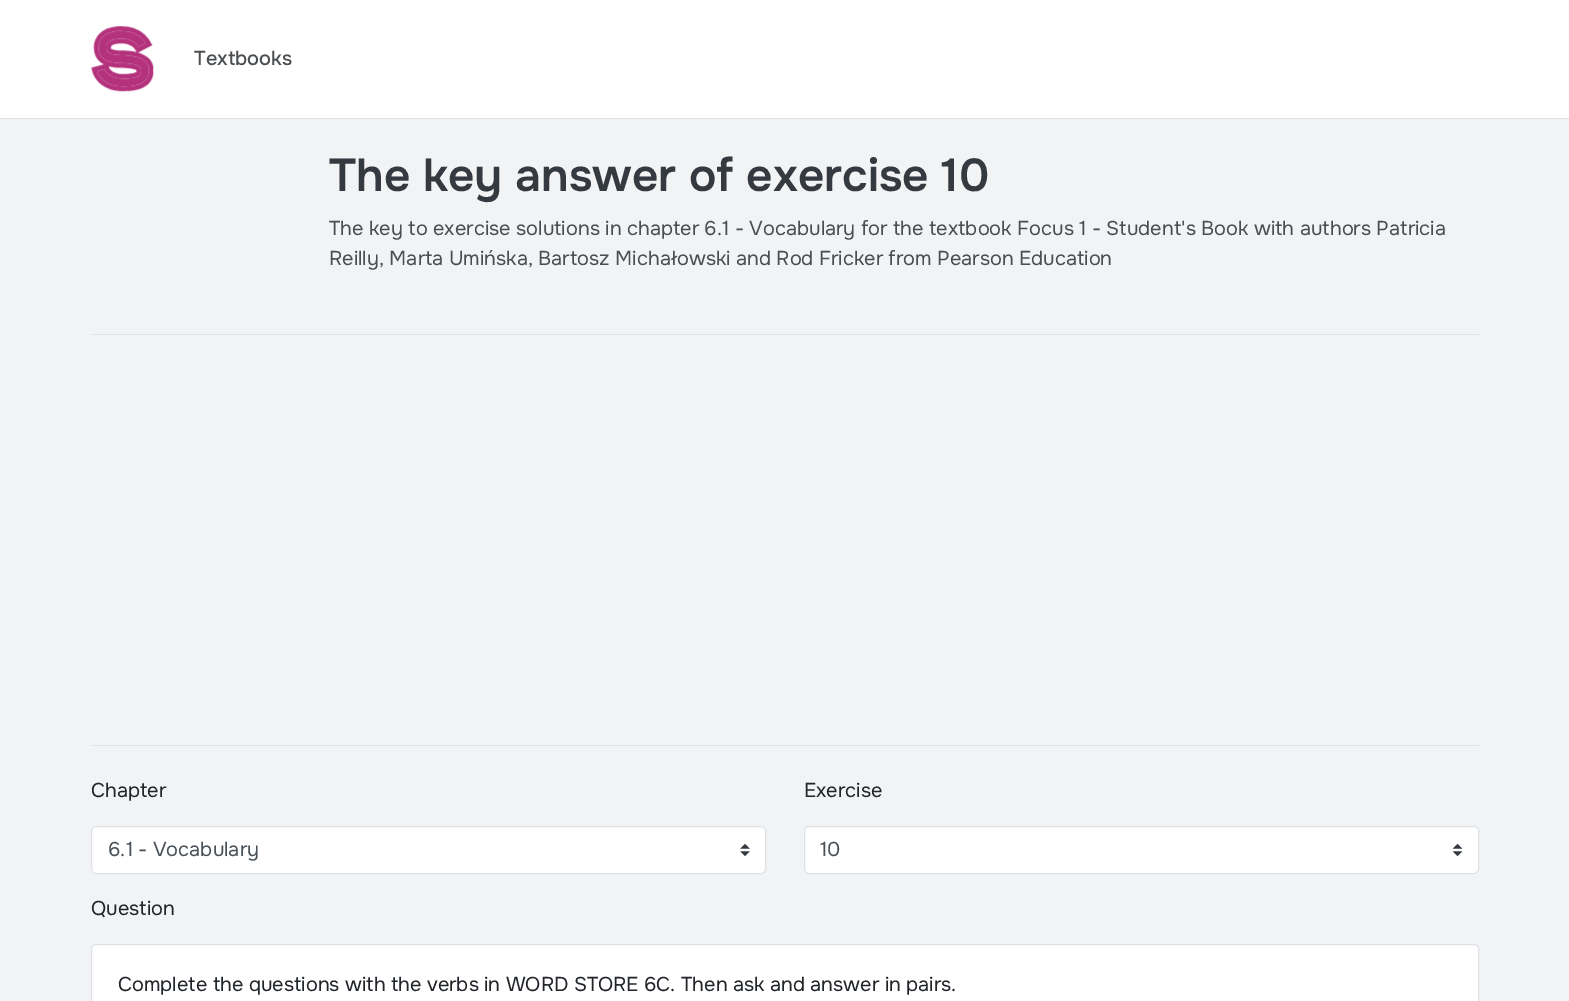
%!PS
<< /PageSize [1569 1001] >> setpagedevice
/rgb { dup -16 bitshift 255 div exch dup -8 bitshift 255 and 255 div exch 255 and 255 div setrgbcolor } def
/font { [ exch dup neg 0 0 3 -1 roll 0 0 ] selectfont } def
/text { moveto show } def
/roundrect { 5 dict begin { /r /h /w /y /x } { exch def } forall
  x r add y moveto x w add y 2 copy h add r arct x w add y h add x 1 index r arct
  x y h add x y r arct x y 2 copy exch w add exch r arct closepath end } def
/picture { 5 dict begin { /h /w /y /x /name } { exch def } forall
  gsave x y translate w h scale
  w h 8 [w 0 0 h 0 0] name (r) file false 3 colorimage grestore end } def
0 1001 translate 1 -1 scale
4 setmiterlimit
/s1 { /Onest-Medium 20 font 16#4B4E51 rgb } def
/s2 { /Onest-SemiBold 46 font 16#343A40 rgb } def
/s3 { /Onest-Regular 20 font 16#4B4E51 rgb } def
/s4 { /Onest-Regular 20 font 16#212529 rgb } def
/s5 { /Onest-Regular 20 font 16#495057 rgb } def
16#F2F3F4 rgb
0 0 1569 1001 rectfill
16#FFFFFF rgb
0 0 1569 118 rectfill
16#DEE2E6 rgb
0 118 1569 1 rectfill
(pic1.raw) 91 26 63 66 picture
s1
(Textbooks) 194 65 text
s2
(The key answer of exercise 10) 329 191 text
s3
(The key to exercise solutions in chapter 6.1 - Vocabulary for the textbook Focus 1 - Student's Book with authors Patricia) 329 235 text
(Reilly, Marta Umińska, Bartosz Michałowski and Rod Fricker from Pearson Education) 329 265 text
16#DEE2E6 rgb
91 334 1388 1 rectfill
91 745 1388 1 rectfill
s4
(Chapter) 91 797 text
16#FFFFFF rgb
91 826 675 48 5 roundrect fill
(pic2.raw) 740 844 10 12 picture
16#DEE2E6 rgb
91.5 826.5 674 47 4.5 roundrect stroke
s5
(6.1 - Vocabulary) 108 856 text
s4
(Exercise) 804 797 text
16#FFFFFF rgb
804 826 675 48 5 roundrect fill
(pic3.raw) 1453 844 10 12 picture
16#DEE2E6 rgb
804.5 826.5 674 47 4.5 roundrect stroke
s5
(10) 820 856 text
s4
(Question) 91 915 text
16#FFFFFF rgb
91.5 944.5 1387 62 4.5 roundrect gsave fill grestore
16#DEE2E6 rgb
stroke
s4
(Complete the questions with the verbs in WORD STORE 6C. Then ask and answer in pairs.) 118 991 text
showpage
